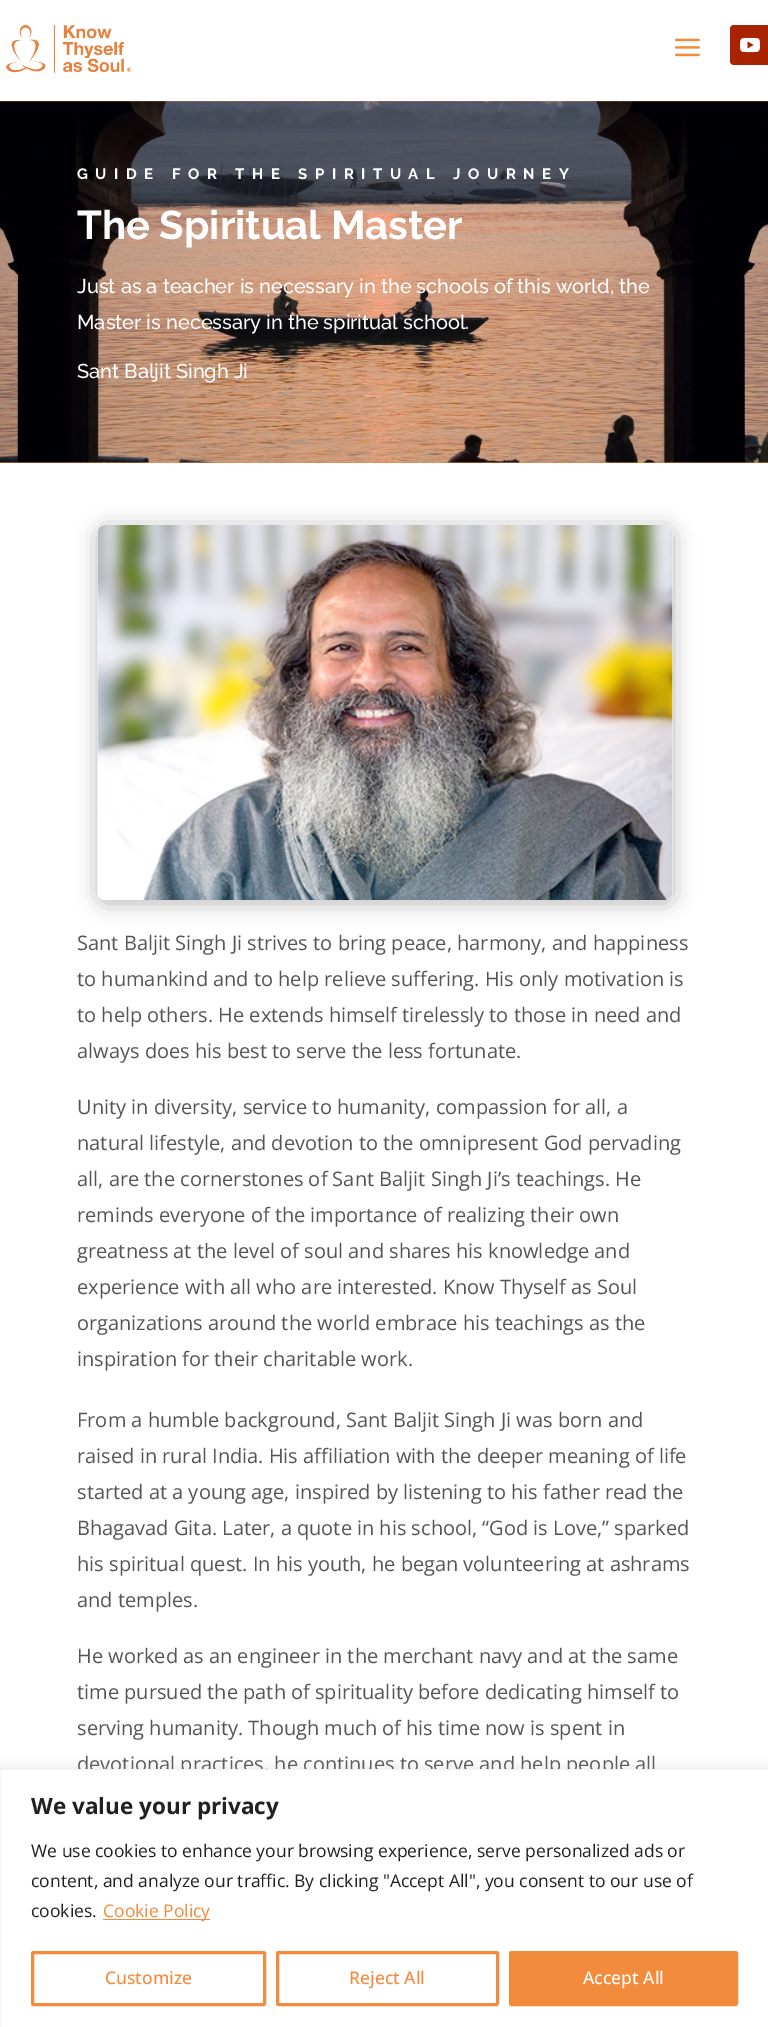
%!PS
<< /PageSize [768 2027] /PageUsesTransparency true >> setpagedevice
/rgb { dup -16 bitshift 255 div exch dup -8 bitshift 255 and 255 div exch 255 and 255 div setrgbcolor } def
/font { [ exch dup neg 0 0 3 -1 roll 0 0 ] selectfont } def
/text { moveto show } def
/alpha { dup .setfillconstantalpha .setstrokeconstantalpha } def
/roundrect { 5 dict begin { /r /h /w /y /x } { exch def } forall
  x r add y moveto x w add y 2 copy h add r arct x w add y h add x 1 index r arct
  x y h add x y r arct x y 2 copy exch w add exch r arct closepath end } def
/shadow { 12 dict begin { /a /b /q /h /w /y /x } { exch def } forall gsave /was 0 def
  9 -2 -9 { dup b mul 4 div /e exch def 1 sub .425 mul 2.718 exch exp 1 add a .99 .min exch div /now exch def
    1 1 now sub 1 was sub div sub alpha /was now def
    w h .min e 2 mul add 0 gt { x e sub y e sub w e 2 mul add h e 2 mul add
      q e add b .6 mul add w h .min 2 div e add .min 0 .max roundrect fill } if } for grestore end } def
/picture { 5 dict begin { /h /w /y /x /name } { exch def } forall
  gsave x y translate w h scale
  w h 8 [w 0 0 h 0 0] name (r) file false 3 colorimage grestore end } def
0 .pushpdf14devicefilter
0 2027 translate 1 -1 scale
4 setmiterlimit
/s1 { /Raleway-Thin 40 font 16#FFFFFF rgb } def
/s2 { /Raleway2-Thin 20 font 16#FFFFFF rgb } def
/s3 { /OpenSans-Regular 20 font 16#555555 rgb } def
/s4 { /OpenSans-Bold 22.5 font 16#212121 rgb } def
/s5 { /OpenSans-Regular 17.5 font 16#212121 rgb } def
/s6 { /OpenSans-Regular 17.5 font 16#F38B3C rgb } def
/s7 { /OpenSans-Medium 17.5 font 16#F38B3C rgb } def
/s8 { /OpenSans-Medium 17.5 font 16#FFFFFF rgb } def
16#FFFFFF rgb
0 0 768 2027 rectfill
(pic1.raw) 6 25 126 48 picture
(pic2.raw) 675 38 25 19 picture
16#A82400 rgb
730 25 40 40 4 roundrect fill
(pic3.raw) 740 37 20 16 picture
16#F38B3C rgb
0 101 768 362 rectfill
(pic4.raw) 0 101 768 362 picture
/Raleway-Thin 15 font
16#FFFFFF rgb
77 179 moveto 7.5 0 (GUIDE FOR THE SPIRITUAL JOURNEY) ashow
s1
(The Spiritual Master) 77 239 text
s2
(Just as a teacher is necessary in the schools of this world, the) 77 293 text
(Master is necessary in the spiritual school.) 77 329 text
(Sant Baljit Singh Ji) 77 378 text
16#000000 rgb
98 528 575 375 8 11 0.3 shadow
(pic5.raw) 97 525 576 375 picture
s3
(Sant Baljit Singh Ji strives to bring peace, harmony, and happiness) 77 950 text
(to humankind and to help relieve suffering. His only motivation is) 77 986 text
(to help others. He extends himself tirelessly to those in need and) 77 1022 text
(always does his best to serve the less fortunate.) 77 1058 text
(Unity in diversity, service to humanity, compassion for all, a) 77 1114 text
(natural lifestyle, and devotion to the omnipresent God pervading) 77 1150 text
(all, are the cornerstones of Sant Baljit Singh Ji’s teachings. He) 77 1186 text
(reminds everyone of the importance of realizing their own) 77 1222 text
(greatness at the level of soul and shares his knowledge and) 77 1258 text
(experience with all who are interested. Know Thyself as Soul) 77 1294 text
(organizations around the world embrace his teachings as the) 77 1330 text
(inspiration for their charitable work.) 77 1366 text
(From a humble background, Sant Baljit Singh Ji was born and) 77 1427 text
(raised in rural India. His affiliation with the deeper meaning of life) 77 1463 text
(started at a young age, inspired by listening to his father read the) 77 1499 text
(Bhagavad Gita. Later, a quote in his school, “God is Love,” sparked) 77 1535 text
(his spiritual quest. In his youth, he began volunteering at ashrams) 77 1571 text
(and temples.) 77 1607 text
(He worked as an engineer in the merchant navy and at the same) 77 1663 text
(time pursued the path of spirituality before dedicating himself to) 77 1699 text
(serving humanity. Though much of his time now is spent in) 77 1735 text
(devotional practices, he continues to serve and help people all) 77 1771 text
16#ACABAB rgb
0 1768 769 258 0 6 0.3 shadow
16#FFFFFF rgb
0.5 1769.5 moveto 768.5 1769.5 lineto 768.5 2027.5 lineto 0.5 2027.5 lineto closepath gsave fill grestore
16#F4F4F4 rgb
stroke
s4
(We value your privacy) 31 1814 text
s5
(We use cookies to enhance your browsing experience, serve personalized ads or) 31 1857 text
(content, and analyze our traffic. By clicking "Accept All", you consent to our use of) 31 1887 text
(cookies.) 31 1917 text
16#F38B3C rgb
103 1919 107 1 rectfill
(Cookie Policy) 103 1917 text
3 setlinewidth
32.5 1952.5 232 52 1 roundrect stroke
s7
(Customize) 105 1984 text
277.5 1952.5 220 52 1 roundrect stroke
(Reject All) 349 1984 text
510.5 1952.5 226 52 1 roundrect gsave fill grestore
stroke
s8
(Accept All) 583 1984 text
.poppdf14devicefilter showpage
